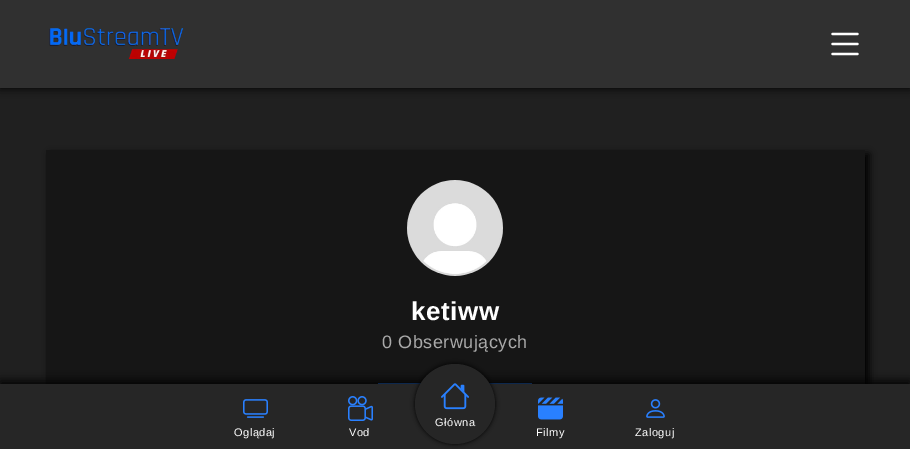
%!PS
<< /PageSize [910 449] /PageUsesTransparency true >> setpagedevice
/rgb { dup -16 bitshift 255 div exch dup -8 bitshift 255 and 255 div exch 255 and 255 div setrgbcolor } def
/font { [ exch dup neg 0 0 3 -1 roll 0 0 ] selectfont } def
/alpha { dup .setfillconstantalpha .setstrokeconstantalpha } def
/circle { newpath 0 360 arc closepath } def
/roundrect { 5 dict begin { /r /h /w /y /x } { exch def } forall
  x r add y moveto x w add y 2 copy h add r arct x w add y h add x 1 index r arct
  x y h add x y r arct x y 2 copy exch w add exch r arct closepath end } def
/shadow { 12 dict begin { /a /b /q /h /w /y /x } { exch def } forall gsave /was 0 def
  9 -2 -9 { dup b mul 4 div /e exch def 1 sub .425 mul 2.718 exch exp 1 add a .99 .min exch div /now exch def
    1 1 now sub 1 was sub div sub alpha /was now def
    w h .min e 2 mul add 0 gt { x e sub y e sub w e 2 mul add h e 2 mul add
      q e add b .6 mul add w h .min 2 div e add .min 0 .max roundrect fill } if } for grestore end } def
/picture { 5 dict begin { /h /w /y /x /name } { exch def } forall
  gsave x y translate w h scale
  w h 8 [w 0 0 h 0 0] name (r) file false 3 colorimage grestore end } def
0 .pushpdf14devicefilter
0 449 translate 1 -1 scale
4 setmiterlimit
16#202020 rgb
0 0 910 449 rectfill
16#000000 rgb
0 0 910 88 0 5 1 shadow
16#303030 rgb
0 0 910 88 rectfill
(pic1.raw) 49 28 135 31 picture
(pic2.raw) 831 32 28 24 picture
16#000000 rgb
50 154 819 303 0 4 1 shadow
16#161616 rgb
46 150 819 234 rectfill
(pic3.raw) 407 180 96 96 picture
/LiberationSans-Bold 26 font
16#FFFFFF rgb
411 320 moveto 0.5 0 (ketiww) ashow
/LiberationSans-Regular 18 font
16#A9A9A9 rgb
382 348 moveto 0.5 0 (0 Obserwujących) ashow
16#2980FF rgb
378 383 154 1 rectfill
16#000000 rgb
0 381 910 65 0 5 1 shadow
16#262626 rgb
0 384 910 65 rectfill
16#000000 rgb
415 364 80 80 40 2.5 1 shadow
16#262626 rgb
455 404 40 circle fill
(pic4.raw) 441 383 28 27 picture
/LiberationSans-Regular 11 font
16#FFFFFF rgb
435 426 moveto 0.5 0 (Główna) ashow
(pic5.raw) 243 399 25 19 picture
234 436 moveto 0.5 0 (Oglądaj) ashow
(pic6.raw) 348 396 25 25 picture
349 436 moveto 0.5 0 (Vod) ashow
(pic7.raw) 538 397 25 23 picture
536 436 moveto 0.5 0 (Filmy) ashow
(pic8.raw) 646 399 19 19 picture
635 436 moveto 0.5 0 (Zaloguj) ashow
.poppdf14devicefilter showpage
